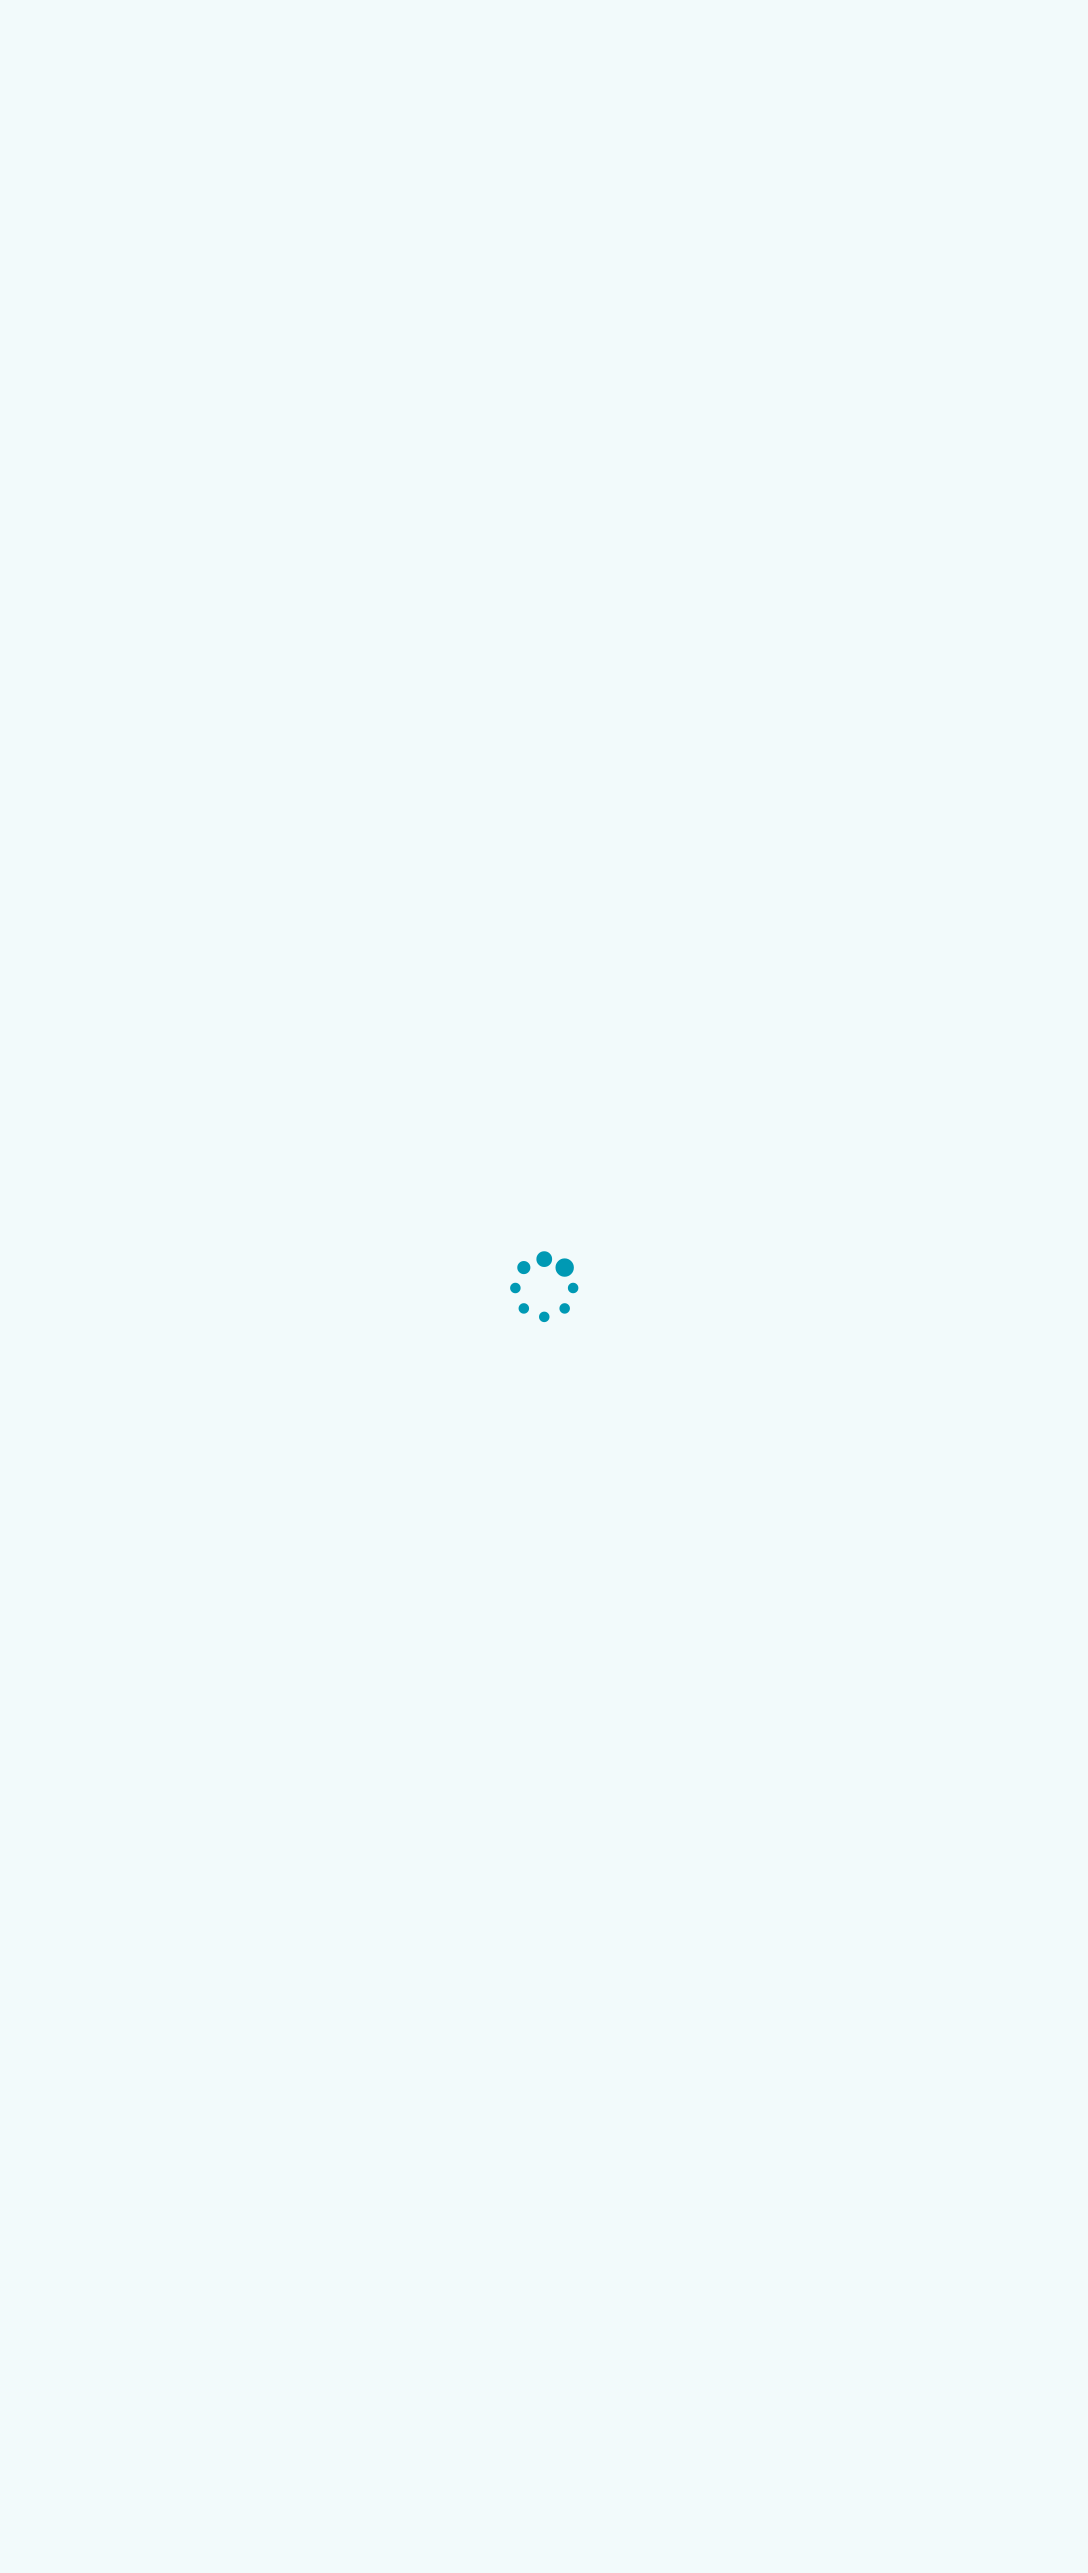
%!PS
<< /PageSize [1088 2573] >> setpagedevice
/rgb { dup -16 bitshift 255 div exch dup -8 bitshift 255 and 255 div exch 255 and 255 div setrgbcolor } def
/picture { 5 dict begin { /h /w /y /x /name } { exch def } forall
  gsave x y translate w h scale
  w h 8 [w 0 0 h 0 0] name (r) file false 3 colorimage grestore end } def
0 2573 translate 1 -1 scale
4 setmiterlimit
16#F2FAFB rgb
0 0 1088 2573 rectfill
(pic1.raw) 510 1251 69 72 picture
showpage
